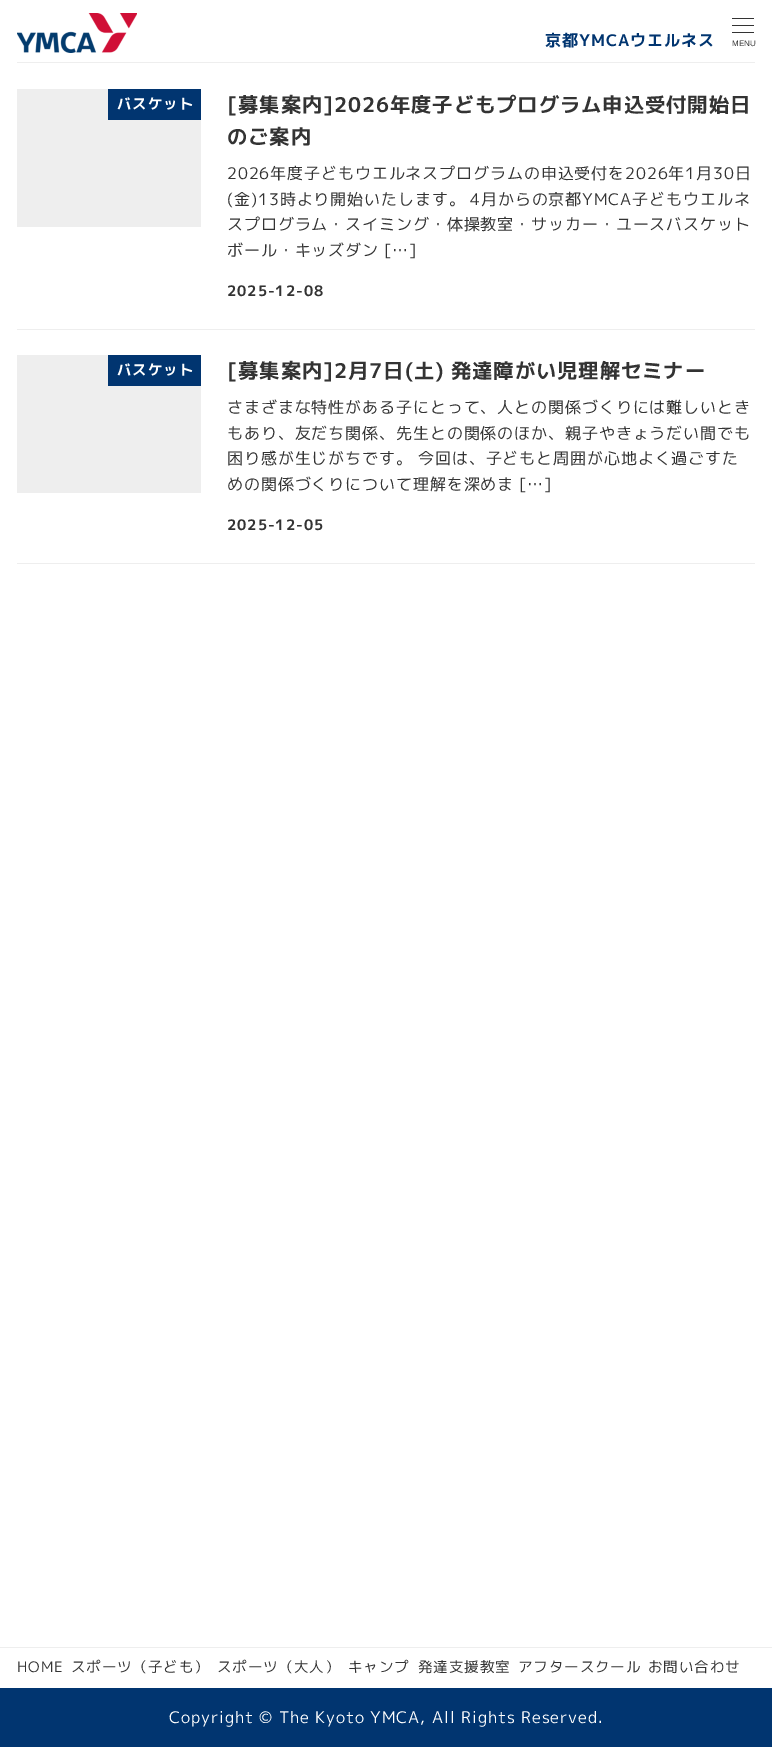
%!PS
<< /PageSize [772 1747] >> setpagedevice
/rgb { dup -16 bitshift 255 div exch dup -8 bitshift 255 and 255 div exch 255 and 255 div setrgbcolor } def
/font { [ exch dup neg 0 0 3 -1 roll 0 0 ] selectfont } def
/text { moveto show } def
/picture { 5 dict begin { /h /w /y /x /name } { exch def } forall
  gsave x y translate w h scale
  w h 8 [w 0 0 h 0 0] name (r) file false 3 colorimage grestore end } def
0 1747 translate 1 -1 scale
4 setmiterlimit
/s1 { /LiberationSans-Regular 8 font 16#333333 rgb } def
16#FFFFFF rgb
0 0 772 1747 rectfill
(pic1.raw) 17 13 120 40 picture
/MPLUS1p-Bold 16 font
16#013570 rgb
545 46 moveto 0.9 0 (京都YMCAウエルネス) ashow
16#333333 rgb
732 18 22 1 rectfill
732 25 22 1 rectfill
732 32 22 1 rectfill
s1
(MENU) 732 46 text
16#EEEEEE rgb
17 62 738 1 rectfill
17 329 738 1 rectfill
17 89 184 138 rectfill
16#013570 rgb
108 89 93 31 rectfill
/MPLUS1p-Bold 14.5 font
16#FFFFFF rgb
117 109 moveto 0.9 0 (バスケット) ashow
/MPLUS1p-Bold 20.35 font
16#333333 rgb
227 112 moveto 0.9 0 ([募集案内]2026年度子どもプログラム申込受付開始日) ashow
227 144 moveto 0.9 0 (のご案内) ashow
/MPLUS1p-Regular 16 font
227 179 moveto 0.9 0 (2026年度子どもウエルネスプログラムの申込受付を2026年1月30日) ashow
227 205 moveto 0.9 0 (\(金\)13時より開始いたします。) ashow
470 205 moveto 0.9 0 (4月からの京都YMCA子どもウエルネ) ashow
227 230 moveto 0.9 0 (スプログラム・スイミング・体操教室・サッカー・ユースバスケット) ashow
227 256 moveto 0.9 0 (ボール・キッズダン) ashow
384 256 moveto 0.9 0 ([…]) ashow
/MPLUS1p-Bold 14.5 font
227 296 moveto 0.9 0 (2025-12-08) ashow
16#EEEEEE rgb
17 563 738 1 rectfill
17 355 184 138 rectfill
16#013570 rgb
108 355 93 31 rectfill
16#FFFFFF rgb
117 375 moveto 0.9 0 (バスケット) ashow
/MPLUS1p-Bold 20.35 font
16#333333 rgb
227 378 moveto 0.9 0 ([募集案内]2月7日\(土\)) ashow
451 378 moveto 0.9 0 (発達障がい児理解セミナー) ashow
/MPLUS1p-Regular 16 font
227 413 moveto 0.9 0 (さまざまな特性がある子にとって、人との関係づくりには難しいとき) ashow
227 439 moveto 0.9 0 (もあり、友だち関係、先生との関係のほか、親子やきょうだい間でも) ashow
227 464 moveto 0.9 0 (困り感が生じがちです。) ashow
418 464 moveto 0.9 0 (今回は、子どもと周囲が心地よく過ごすた) ashow
227 490 moveto 0.9 0 (めの関係づくりについて理解を深めま) ashow
519 490 moveto 0.9 0 ([…]) ashow
/MPLUS1p-Bold 14.5 font
227 530 moveto 0.9 0 (2025-12-05) ashow
16#EEEEEE rgb
0 1647 772 1 rectfill
/MPLUS1p-Regular 14.5 font
16#333333 rgb
17 1672 moveto 0.9 0 (HOME) ashow
71 1672 moveto 0.9 0 (スポーツ（子ども）) ashow
217 1672 moveto 0.9 0 (スポーツ（大人）) ashow
348 1672 moveto 0.9 0 (キャンプ) ashow
418 1672 moveto 0.9 0 (発達支援教室) ashow
518 1672 moveto 0.9 0 (アフタースクール) ashow
648 1672 moveto 0.9 0 (お問い合わせ) ashow
16#013570 rgb
0 1688 772 59 rectfill
/MPLUS1p-Regular 16 font
16#FFFFFF rgb
169 1723 moveto 0.9 0 (Copyright) ashow
259 1723 moveto 0.9 0 (©) ashow
279 1723 moveto 0.9 0 (The) ashow
315 1723 moveto 0.9 0 (Kyoto) ashow
370 1723 moveto 0.9 0 (YMCA,) ashow
432 1723 moveto 0.9 0 (All) ashow
461 1723 moveto 0.9 0 (Rights) ashow
521 1723 moveto 0.9 0 (Reserved.) ashow
showpage
